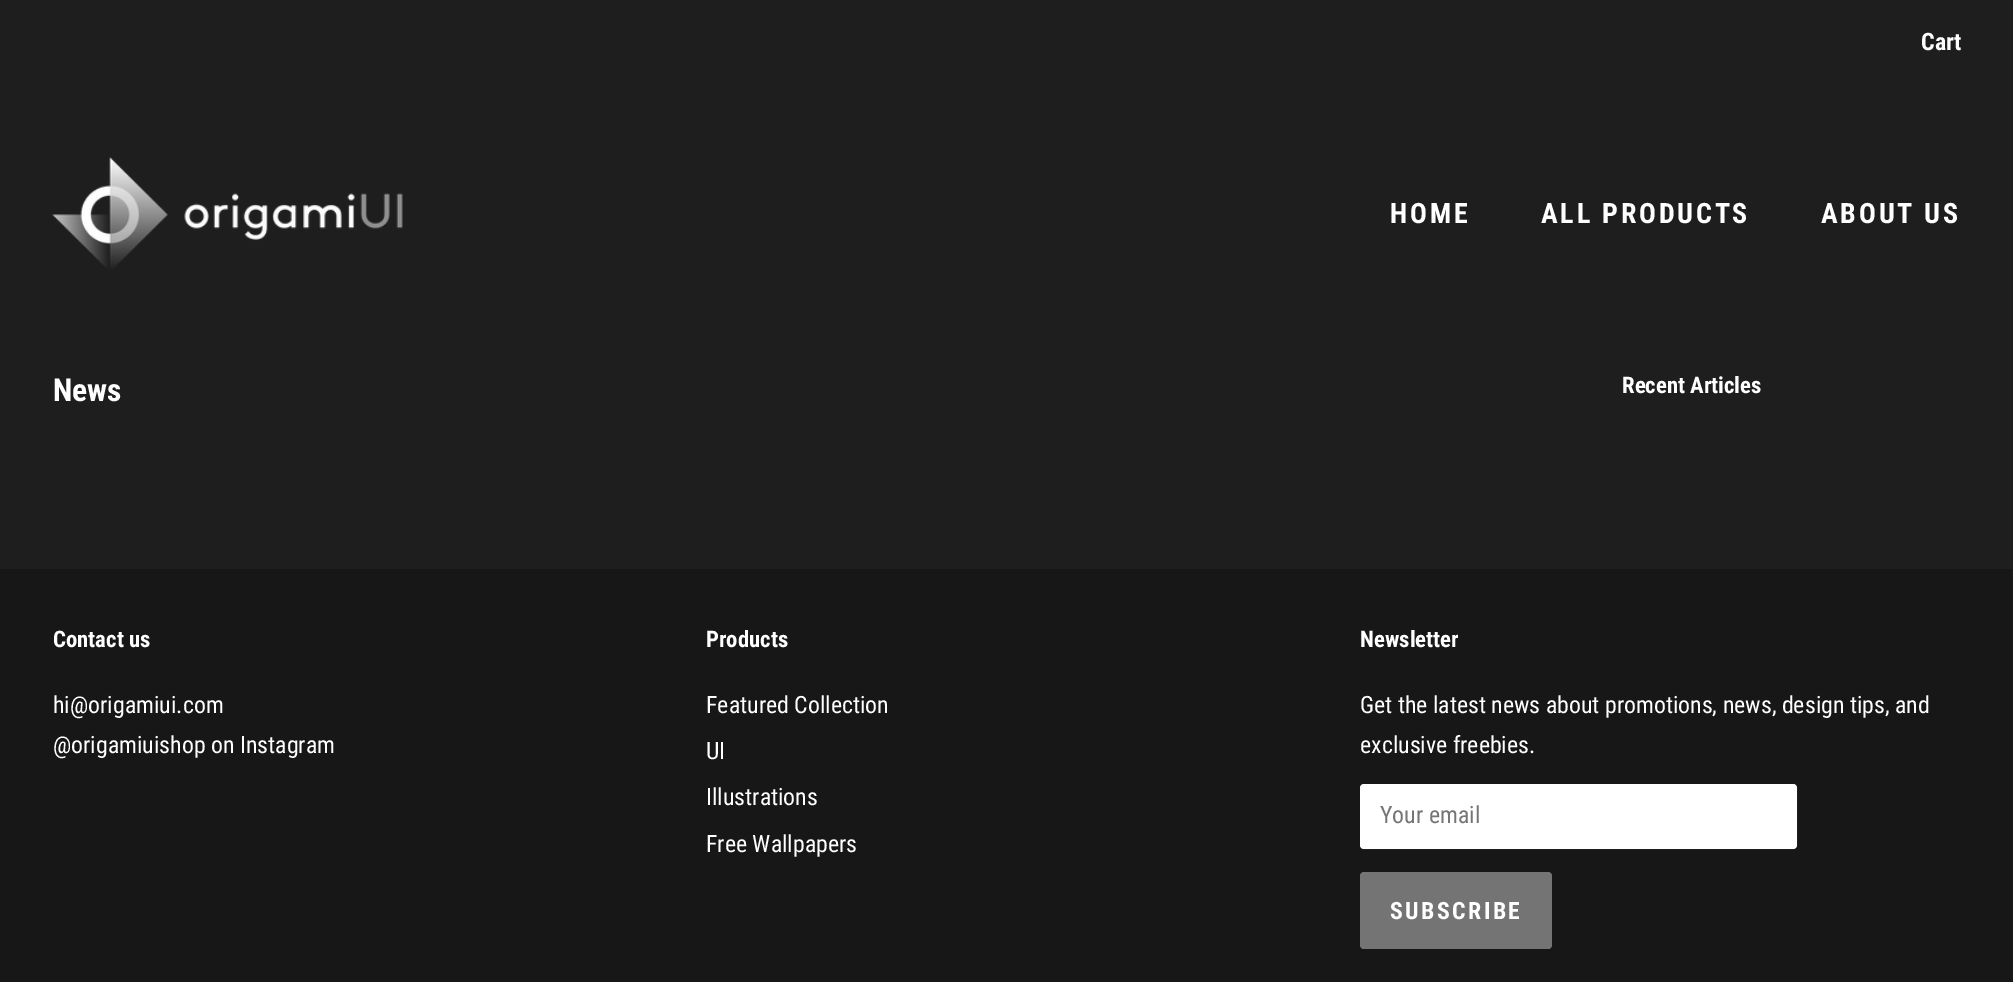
%!PS
<< /PageSize [2013 982] /PageUsesTransparency true >> setpagedevice
/rgb { dup -16 bitshift 255 div exch dup -8 bitshift 255 and 255 div exch 255 and 255 div setrgbcolor } def
/font { [ exch dup neg 0 0 3 -1 roll 0 0 ] selectfont } def
/text { moveto show } def
/alpha { dup .setfillconstantalpha .setstrokeconstantalpha } def
/roundrect { 5 dict begin { /r /h /w /y /x } { exch def } forall
  x r add y moveto x w add y 2 copy h add r arct x w add y h add x 1 index r arct
  x y h add x y r arct x y 2 copy exch w add exch r arct closepath end } def
/picture { 5 dict begin { /h /w /y /x /name } { exch def } forall
  gsave x y translate w h scale
  w h 8 [w 0 0 h 0 0] name (r) file false 3 colorimage grestore end } def
0 .pushpdf14devicefilter
0 982 translate 1 -1 scale
4 setmiterlimit
/s1 { /RobotoCondensed-Bold 24 font 16#FFFFFF rgb } def
/s2 { /RobotoCondensed-Bold 31.5 font 16#FFFFFF rgb } def
/s3 { /RobotoCondensed-Bold 22.75 font 16#FFFFFF rgb } def
/s4 { /RobotoCondensed-Regular 23.8 font 16#FFFFFF rgb } def
/s5 { /RobotoCondensed-Regular 23.8 font 16#757575 rgb } def
16#1E1E1E rgb
0 0 2013 982 rectfill
s1
(Cart) 1921 50 text
(pic1.raw) 52 157 351 112 picture
/RobotoCondensed-Bold 28 font
1390 223 moveto 2.75 0 (HOME) ashow
1541 223 moveto 2.75 0 (ALL PRODUCTS) ashow
1821 223 moveto 2.75 0 (ABOUT US) ashow
s2
(News) 53 401 text
s3
(Recent Articles) 1622 393 text
16#171717 rgb
0 569 2013 413 rectfill
s3
(Contact us) 53 647 text
s4
(hi@origamiui.com) 53 713 text
(@origamiuishop on Instagram) 53 753 text
s3
(Products) 706 647 text
s4
(Featured Collection) 706 713 text
(UI) 706 759 text
(Illustrations) 706 805 text
(Free Wallpapers) 706 852 text
s3
(Newsletter) 1360 647 text
s4
(Get the latest news about promotions, news, design tips, and) 1360 713 text
(exclusive freebies.) 1360 753 text
1360 784 437 65 4 roundrect fill
0.15 alpha
2 setlinewidth
1361 785 435 63 3 roundrect stroke
1 alpha
s5
(Your email) 1380 823 text
16#747474 rgb
1360 872 192 77 4 roundrect fill
/RobotoCondensed-Bold 23.8 font
16#FFFFFF rgb
1390 919 moveto 2.4 0 (SUBSCRIBE) ashow
.poppdf14devicefilter showpage
